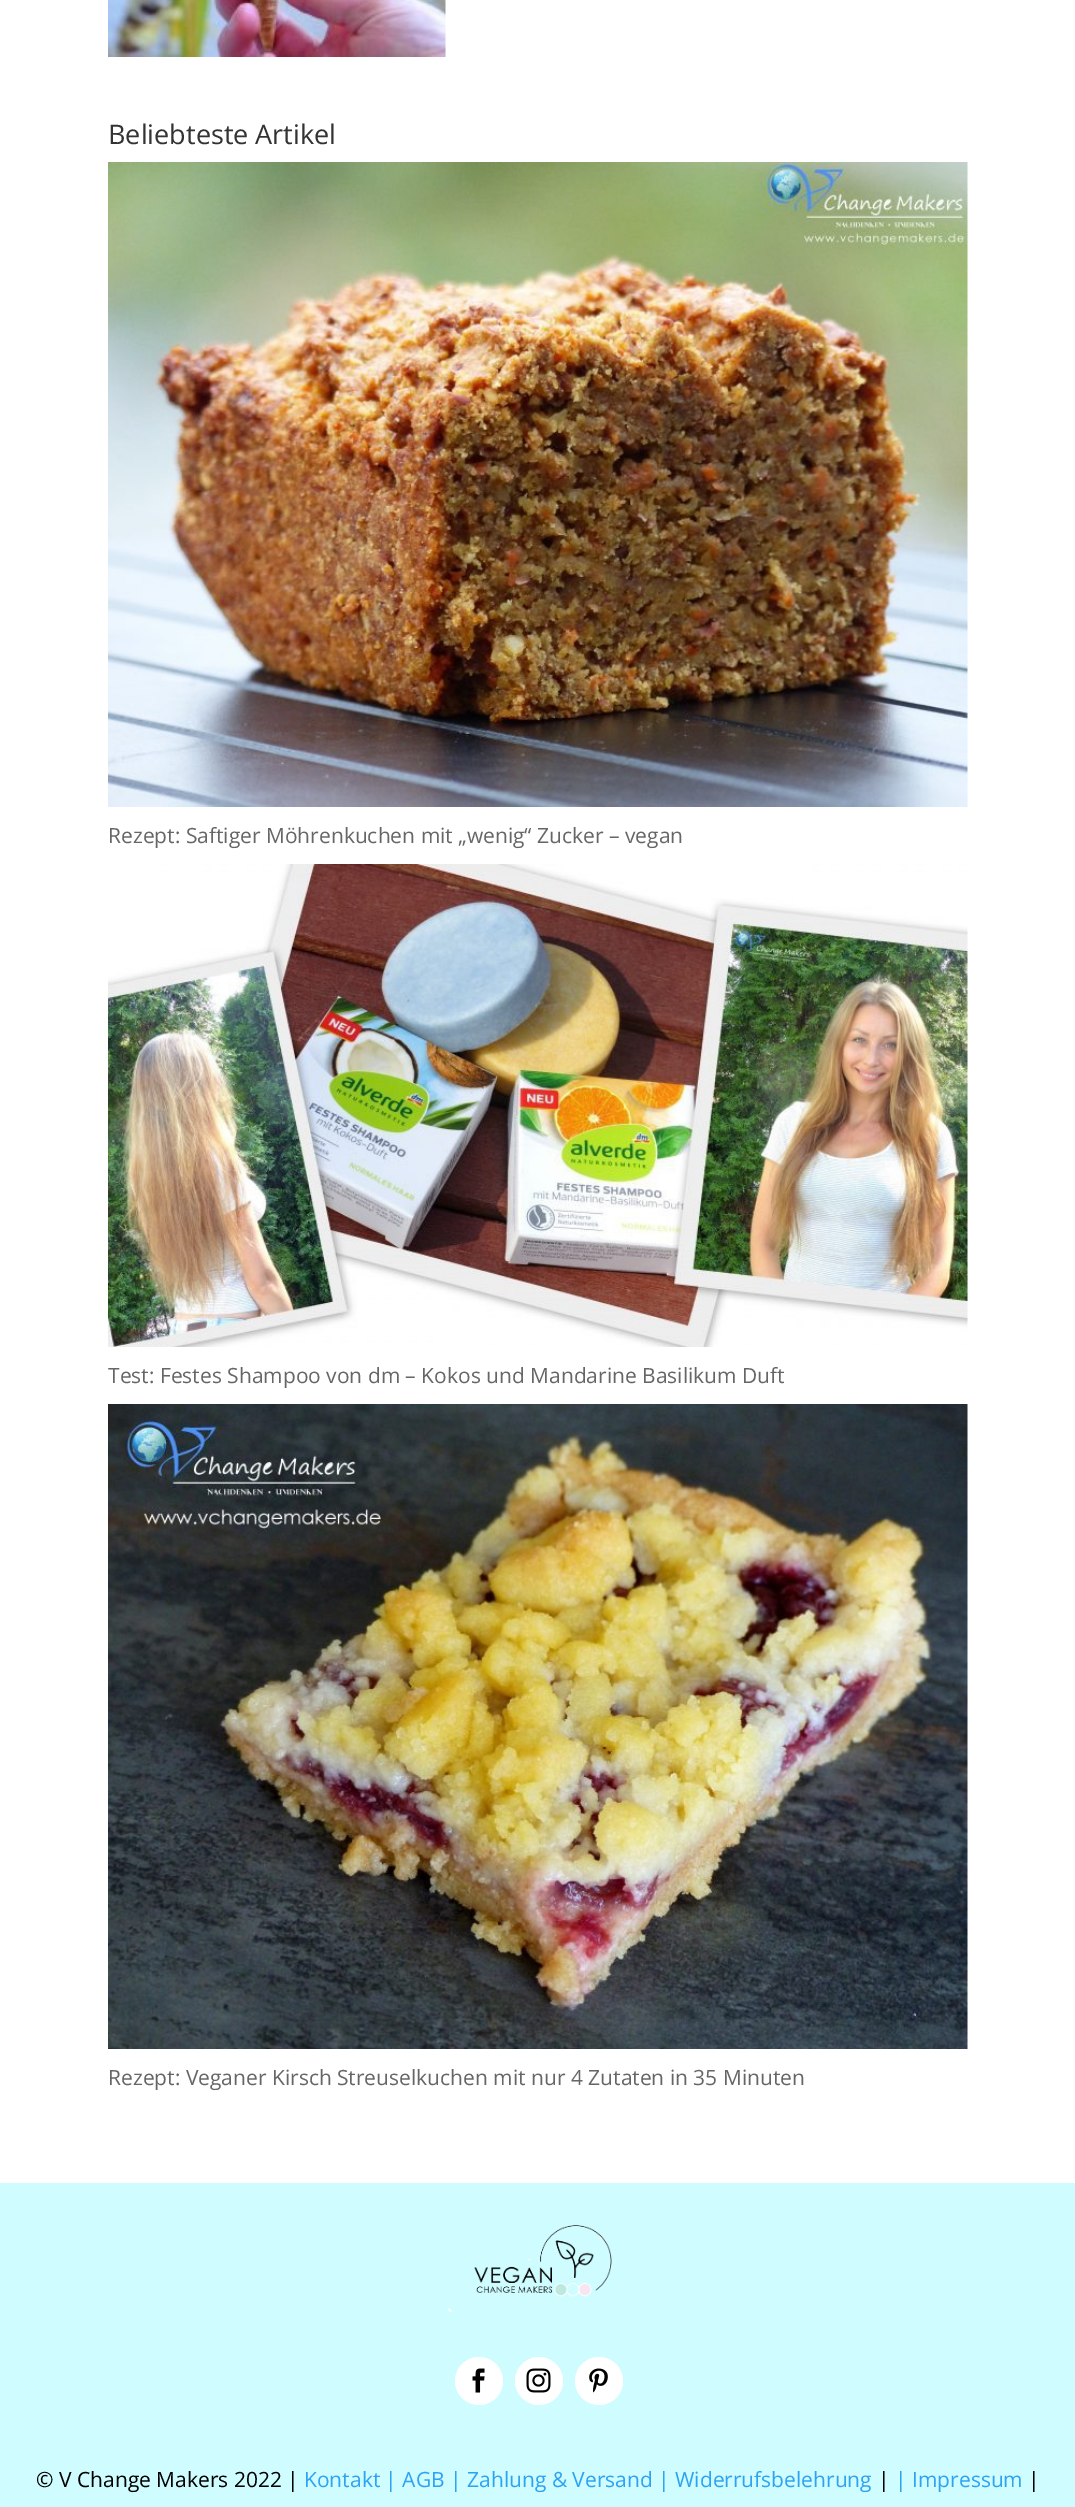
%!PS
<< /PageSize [1075 2507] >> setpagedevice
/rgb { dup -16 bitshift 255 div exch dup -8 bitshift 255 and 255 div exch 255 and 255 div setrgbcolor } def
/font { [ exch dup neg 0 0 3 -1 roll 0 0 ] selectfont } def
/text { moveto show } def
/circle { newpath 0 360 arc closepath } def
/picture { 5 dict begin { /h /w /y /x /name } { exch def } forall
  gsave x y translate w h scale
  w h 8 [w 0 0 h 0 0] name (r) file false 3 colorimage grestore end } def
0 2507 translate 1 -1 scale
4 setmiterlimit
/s1 { /OpenSans-Regular 27 font 16#333333 rgb } def
/s2 { /OpenSans-Regular 21 font 16#666666 rgb } def
/s3 { /OpenSans-Regular 21 font 16#000000 rgb } def
/s4 { /OpenSans-Regular 21 font 16#2EA3F2 rgb } def
16#FFFFFF rgb
0 0 1075 2507 rectfill
(pic1.raw) 108 0 338 57 picture
s1
(Beliebteste Artikel) 108 144 text
(pic2.raw) 108 162 860 645 picture
s2
(Rezept: Saftiger Möhrenkuchen mit „wenig“ Zucker – vegan) 108 843 text
(pic3.raw) 108 864 860 483 picture
(Test: Festes Shampoo von dm – Kokos und Mandarine Basilikum Duft) 108 1383 text
(pic4.raw) 108 1404 860 645 picture
(Rezept: Veganer Kirsch Streuselkuchen mit nur 4 Zutaten in 35 Minuten) 108 2085 text
16#CEFCFF rgb
0 2183 1075 324 rectfill
(pic5.raw) 448 2225 164 87 picture
16#FFFFFF rgb
479 2381 24 circle fill
(pic6.raw) 472 2368 13 25 picture
539 2381 24 circle fill
(pic7.raw) 526 2368 25 25 picture
599 2381 24 circle fill
(pic8.raw) 589 2368 19 25 picture
s3
(© V Change Makers 2022 |) 36 2487 text
s4
(Kontakt | AGB | Zahlung & Versand | Widerrufsbelehrung) 304 2487 text
s3
(|) 878 2487 text
s4
(| Impressum) 895 2487 text
s3
(|) 1028 2487 text
showpage
